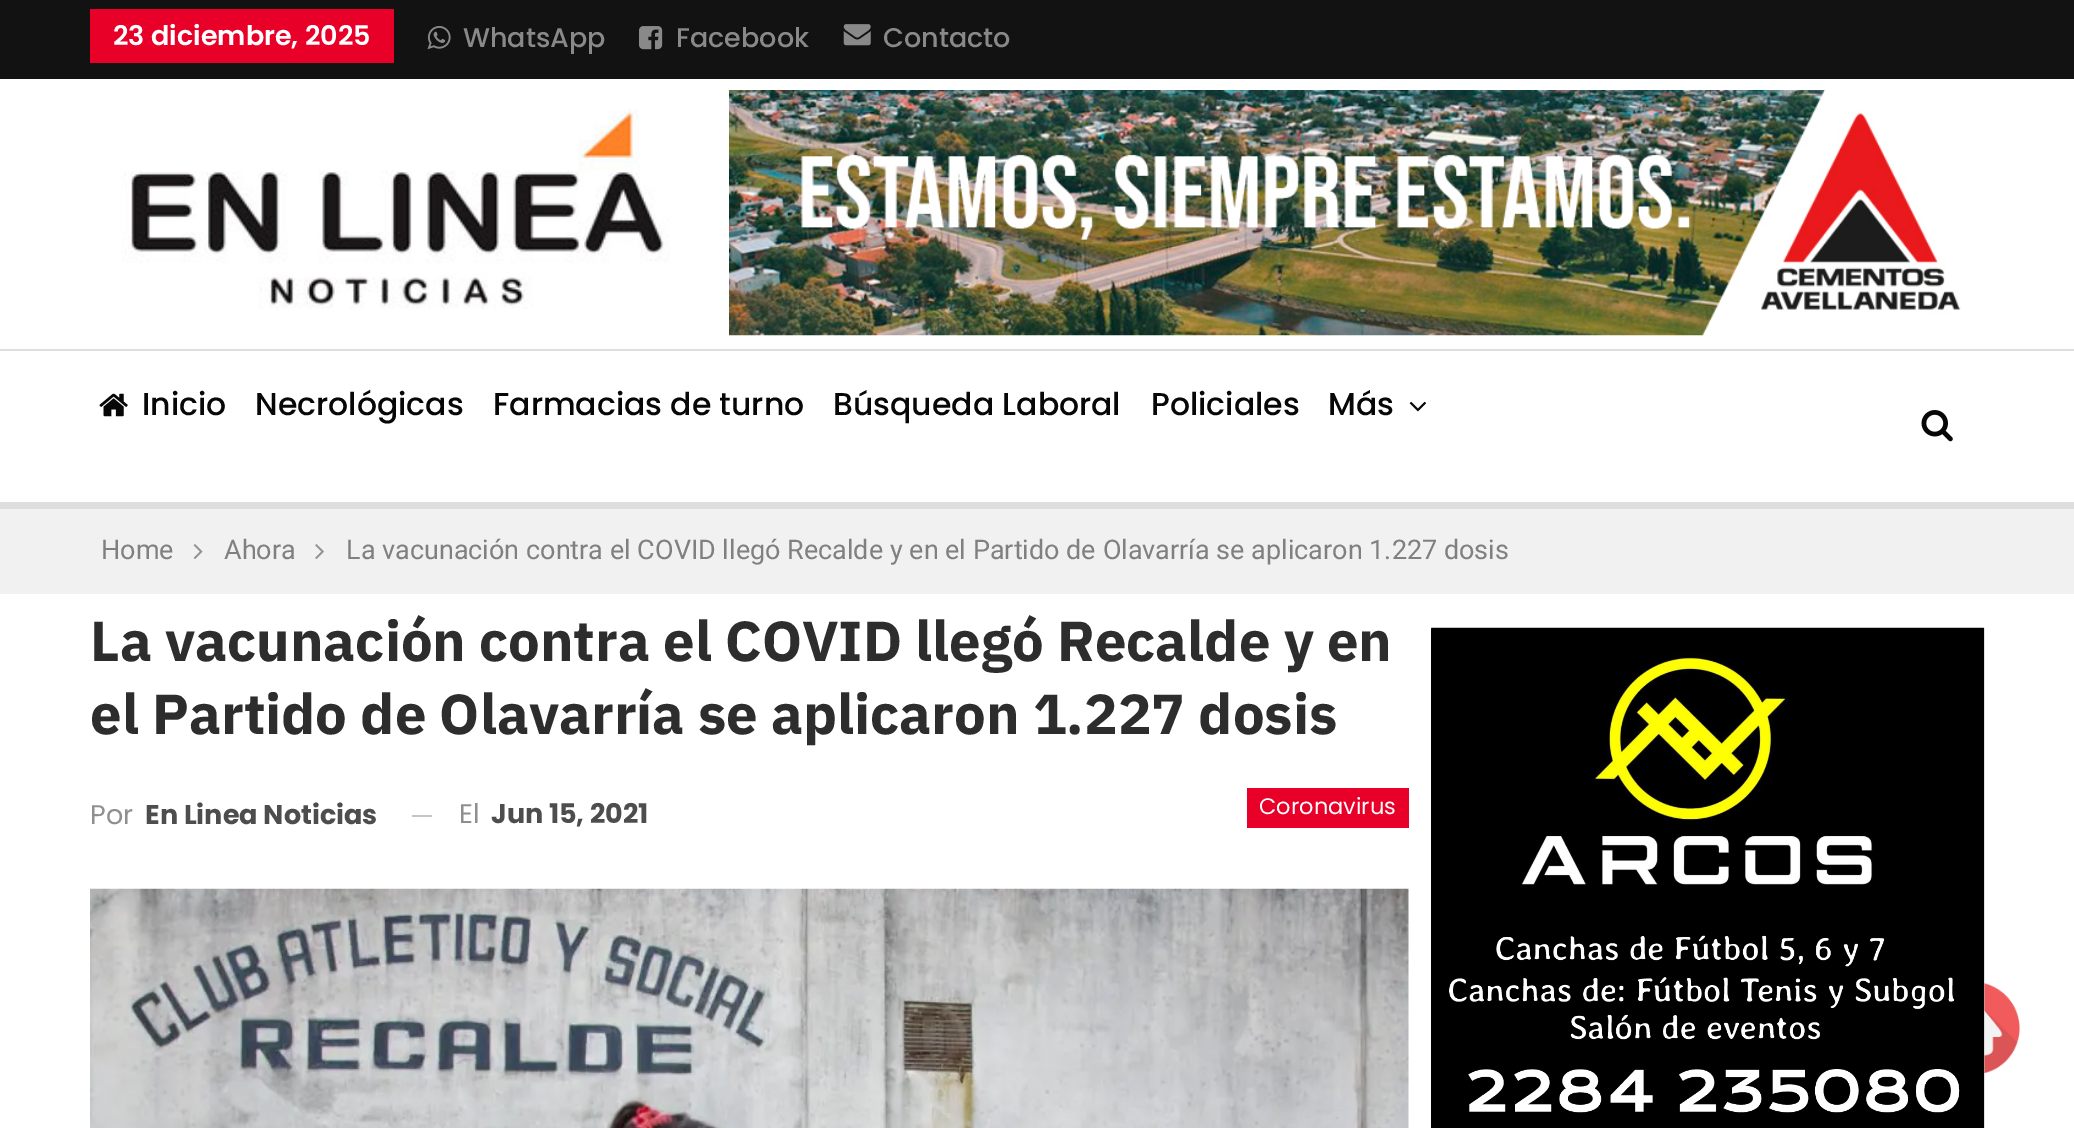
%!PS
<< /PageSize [2074 1128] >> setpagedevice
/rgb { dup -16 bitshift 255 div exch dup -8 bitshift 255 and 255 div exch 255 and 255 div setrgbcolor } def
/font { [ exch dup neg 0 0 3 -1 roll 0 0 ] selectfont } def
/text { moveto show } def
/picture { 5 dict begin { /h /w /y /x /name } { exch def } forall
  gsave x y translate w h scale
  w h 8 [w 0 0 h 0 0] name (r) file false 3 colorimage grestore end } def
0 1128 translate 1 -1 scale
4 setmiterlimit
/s1 { /Poppins-SemiBold 27 font 16#FFFFFF rgb } def
/s2 { /Poppins-Medium 27 font 16#898989 rgb } def
/s3 { /Poppins-Medium 31.5 font 16#070707 rgb } def
/s4 { /Roboto-Regular 27 font 16#808080 rgb } def
/s5 { /IBMPlexSans-Bold 56.25 font 16#2D2D2D rgb } def
/s6 { /Poppins-Regular 27 font 16#8F8F8F rgb } def
/s7 { /Poppins-Bold 27 font 16#4D4D4D rgb } def
/s8 { /Poppins-Regular 22.5 font 16#FFFFFF rgb } def
16#FFFFFF rgb
0 0 2074 1128 rectfill
16#121212 rgb
0 0 2074 79 rectfill
16#E80028 rgb
90 9 304 54 rectfill
s1
(23 diciembre, 2025) 113 45 text
(pic1.raw) 427 26 24 24 picture
s2
(WhatsApp) 463 47 text
(pic2.raw) 639 26 24 24 picture
(Facebook) 676 47 text
(pic3.raw) 843 24 28 22 picture
(Contacto) 883 47 text
(pic4.raw) 121 109 549 200 picture
(pic5.raw) 729 90 1232 246 picture
16#DEDEDE rgb
0 349 2074 2 rectfill
0 502 2074 7 rectfill
(pic6.raw) 99 393 29 24 picture
s3
(Inicio) 142 415 text
(Necrológicas) 255 415 text
(Farmacias de turno) 493 415 text
(Búsqueda Laboral) 833 415 text
(Policiales) 1151 415 text
(Más) 1328 415 text
(pic7.raw) 1409 401 17 11 picture
(pic8.raw) 1921 410 32 32 picture
16#F1F1F1 rgb
0 509 2074 85 rectfill
s4
(Home) 101 559 text
(pic9.raw) 193 544 10 15 picture
(Ahora) 224 559 text
(pic10.raw) 315 544 9 15 picture
(La vacunación contra el COVID llegó Recalde y en el Partido de Olavarría se aplicaron 1.227 dosis) 346 559 text
s5
(La vacunación contra el COVID llegó Recalde y en) 90 661 text
(el Partido de Olavarría se aplicaron 1.227 dosis) 90 734 text
s6
(Por) 90 824 text
s7
(En Linea Noticias) 145 824 text
16#C4C4C4 rgb
412 815 20 2 rectfill
s6
(El) 459 823 text
s7
(Jun 15, 2021) 491 823 text
16#E80028 rgb
1247 788 162 40 rectfill
s8
(Coronavirus) 1259 814 text
(pic11.raw) 90 888 1319 240 picture
(pic13.raw) 1984 982 36 92 picture
(pic12.raw) 1431 627 554 501 picture
showpage
